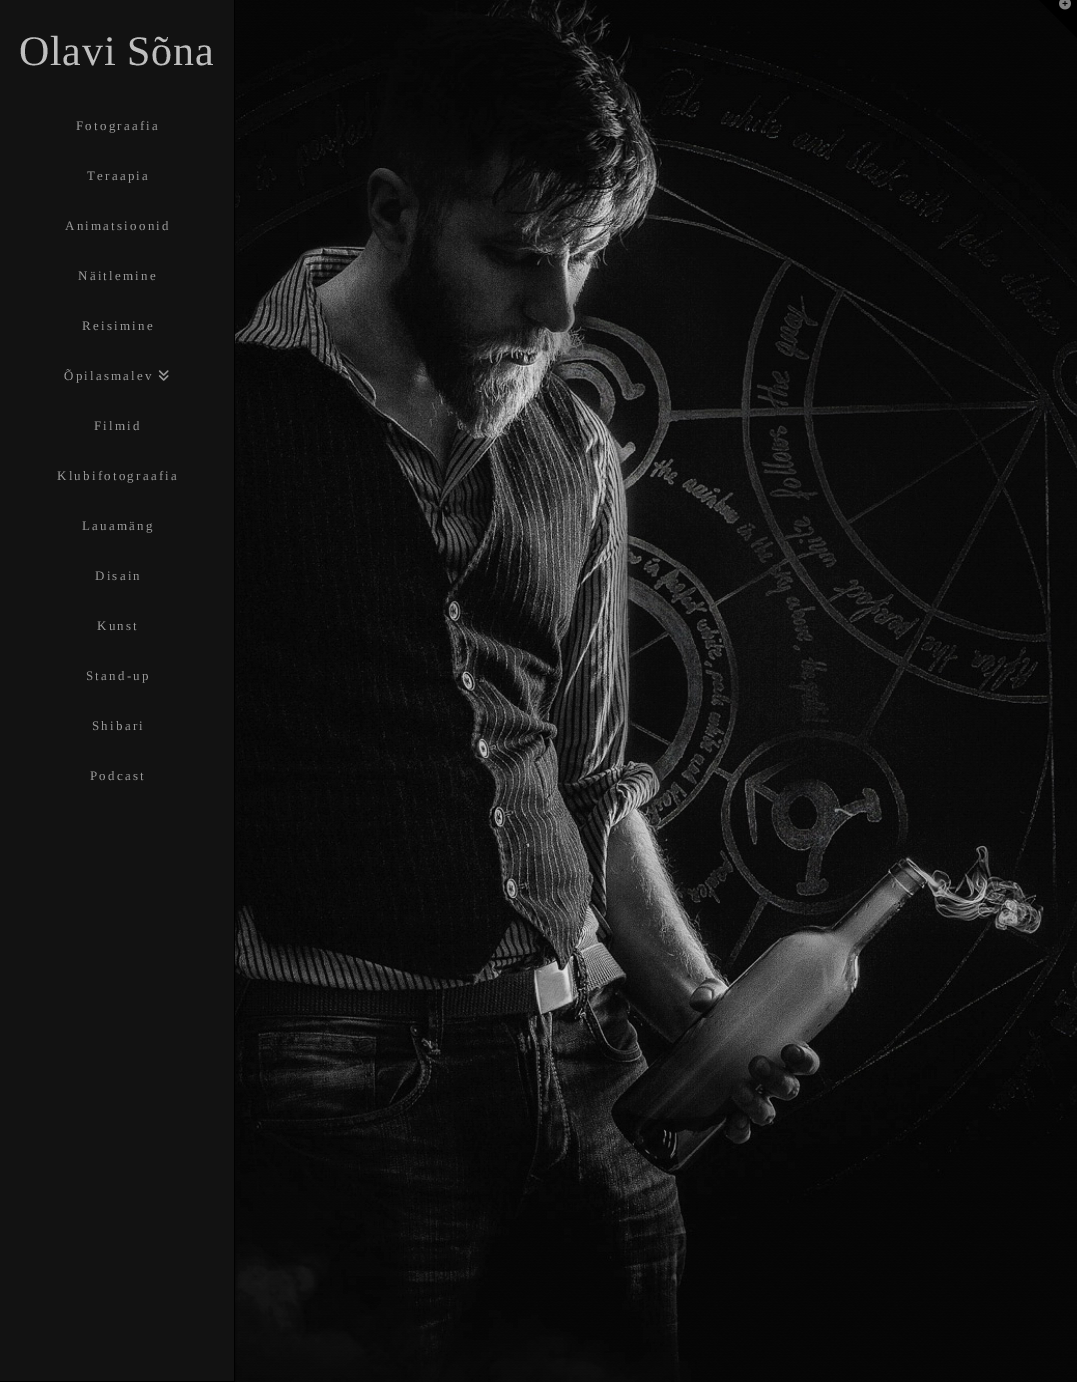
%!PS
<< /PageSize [1077 1382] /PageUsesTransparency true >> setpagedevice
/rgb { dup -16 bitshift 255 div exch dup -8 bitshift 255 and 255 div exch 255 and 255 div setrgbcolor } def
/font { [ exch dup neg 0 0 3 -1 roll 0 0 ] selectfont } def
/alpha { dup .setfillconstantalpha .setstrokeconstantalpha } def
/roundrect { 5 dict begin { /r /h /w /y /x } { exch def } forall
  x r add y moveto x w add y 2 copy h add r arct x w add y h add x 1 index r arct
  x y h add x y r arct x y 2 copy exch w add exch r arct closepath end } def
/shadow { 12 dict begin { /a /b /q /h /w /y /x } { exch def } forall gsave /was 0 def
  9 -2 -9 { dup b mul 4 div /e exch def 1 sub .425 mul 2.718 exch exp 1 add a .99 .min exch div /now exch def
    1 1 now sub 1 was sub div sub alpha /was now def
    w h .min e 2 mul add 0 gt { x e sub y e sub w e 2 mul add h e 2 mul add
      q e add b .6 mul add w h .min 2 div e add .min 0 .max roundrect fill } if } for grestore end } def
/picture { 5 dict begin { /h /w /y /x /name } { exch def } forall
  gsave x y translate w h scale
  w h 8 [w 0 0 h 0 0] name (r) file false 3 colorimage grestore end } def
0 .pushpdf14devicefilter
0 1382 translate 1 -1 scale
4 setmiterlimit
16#FFFFFF rgb
0 0 1077 1382 rectfill
(pic1.raw) 235 0 842 1382 picture
(pic4.raw) 235 0 842 1382 picture
16#000000 rgb
1039 0 moveto 1077 0 lineto 1058 19 lineto closepath fill
1077 0 moveto 1077 38 lineto 1058 19 lineto closepath fill
(pic2.raw) 1059 0 12 10 picture
2 0 235 1382 0 2 0.29 shadow
16#121212 rgb
0 0 234 1381 rectfill
16#000000 rgb
234 0 1 1382 rectfill
0 1381 235 1 rectfill
/LiberationSerif-Regular 42 font
16#BFBFBF rgb
19 65 moveto 0.75 0 (Olavi Sõna) ashow
/LiberationSerif-Regular 13 font
16#999999 rgb
76 130 moveto 2.2 0 (Fotograafia) ashow
87 180 moveto 2.2 0 (Teraapia) ashow
65 230 moveto 2.2 0 (Animatsioonid) ashow
78 280 moveto 2.2 0 (Näitlemine) ashow
82 330 moveto 2.2 0 (Reisimine) ashow
64 380 moveto 2.2 0 (Õpilasmalev) ashow
(pic3.raw) 158 370 11 11 picture
94 430 moveto 2.2 0 (Filmid) ashow
57 480 moveto 2.2 0 (Klubifotograafia) ashow
82 530 moveto 2.2 0 (Lauamäng) ashow
95 580 moveto 2.2 0 (Disain) ashow
97 630 moveto 2.2 0 (Kunst) ashow
86 680 moveto 2.2 0 (Stand-up) ashow
92 730 moveto 2.2 0 (Shibari) ashow
90 780 moveto 2.2 0 (Podcast) ashow
.poppdf14devicefilter showpage
